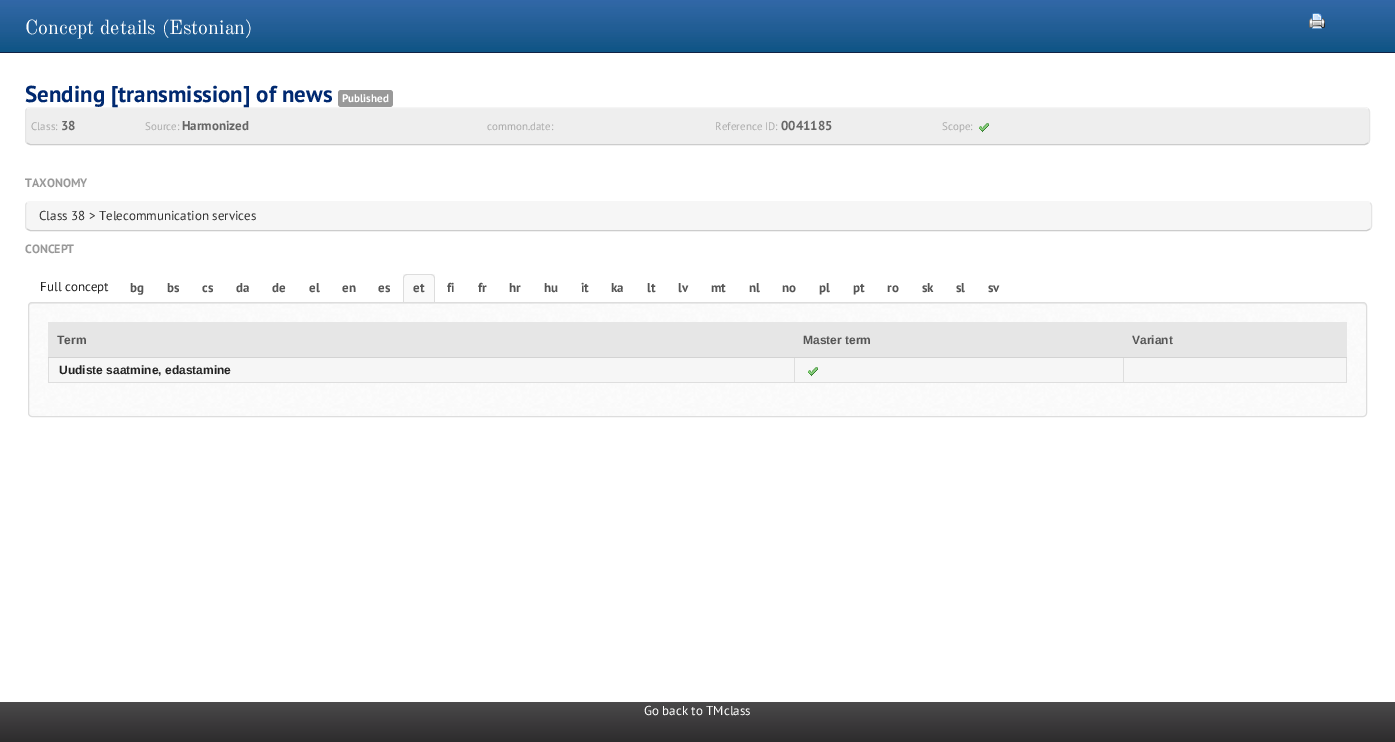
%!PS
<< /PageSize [1395 742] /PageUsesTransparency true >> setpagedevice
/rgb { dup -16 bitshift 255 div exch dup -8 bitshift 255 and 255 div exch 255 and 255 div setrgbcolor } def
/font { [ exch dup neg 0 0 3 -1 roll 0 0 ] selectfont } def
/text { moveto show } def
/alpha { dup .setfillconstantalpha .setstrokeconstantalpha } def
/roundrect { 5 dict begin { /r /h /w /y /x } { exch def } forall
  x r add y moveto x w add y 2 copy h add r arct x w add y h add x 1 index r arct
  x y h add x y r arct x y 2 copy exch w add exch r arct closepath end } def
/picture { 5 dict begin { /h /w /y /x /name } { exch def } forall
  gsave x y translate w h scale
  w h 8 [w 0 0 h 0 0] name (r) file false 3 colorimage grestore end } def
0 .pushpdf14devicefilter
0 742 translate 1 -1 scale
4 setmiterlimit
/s1 { /OldStandardTT-Regular 20 font 16#FFFFFF rgb } def
/s2 { /PTSans-Bold 23 font 16#002970 rgb } def
/s3 { /PTSans-Bold 11 font 16#FFFFFF rgb } def
/s4 { /PTSans-Regular 11 font 16#AAAAAA rgb } def
/s5 { /PTSans-Bold 13 font 16#666666 rgb } def
/s6 { /PTSans-Bold 12 font 16#999999 rgb } def
/s7 { /PTSans-Regular 13 font 16#333333 rgb } def
/s8 { /PTSans-Regular 13 font 16#222222 rgb } def
/s9 { /PTSans-Bold 13 font 16#555555 rgb } def
/s10 { /LiberationSans-Bold 12 font 16#555555 rgb } def
/s11 { /LiberationSans-Bold 12 font 16#222222 rgb } def
/s12 { /PTSans-Regular 13 font 16#FFFFFF rgb } def
16#FFFFFF rgb
0 0 1395 742 rectfill
(pic1.raw) 0 0 1395 53 picture
s1
(Concept details \(Estonian\)) 25 34 text
16#EEEEEE rgb
25 107 1345 38 5 roundrect fill
16#F5F5F5 rgb
27 109 moveto 30 107.5 lineto 1365 107.5 lineto 1368 109 lineto stroke
s2
(Sending [transmission] of news) 25 102 text
16#999999 rgb
338 90 55 17 3 roundrect fill
s3
(Published) 342 102 text
16#E5E5E5 rgb
1368 109 moveto 1369 109.5 1369.5 111 1369.5 112 curveto 1369.5 140 lineto 1369.5 141 1369 142.5 1368 143 curveto stroke
16#CCCCCC rgb
1368 143 moveto 1365 144.5 lineto 30 144.5 lineto 27 143 lineto stroke
16#E5E5E5 rgb
27 143 moveto 26 142.5 25.5 141 25.5 140 curveto 25.5 112 lineto 25.5 111 26 109.5 27 109 curveto stroke
s4
(Class:) 31 130 text
s5
(38) 61 130 text
s4
(Source:) 145 130 text
s5
(Harmonized) 182 130 text
s4
(common.date:) 487 130 text
(Reference ID:) 715 130 text
s5
(0041185) 781 130 text
s4
(Scope:) 942 130 text
(pic2.raw) 979 123 10 10 picture
s6
(TAXONOMY) 25 187 text
16#F6F6F6 rgb
25 201 1347 30 5 roundrect fill
16#E5E5E5 rgb
1370 203 moveto 1371 203.5 1371.5 205 1371.5 206 curveto 1371.5 226 lineto 1371.5 227 1371 228.5 1370 229 curveto stroke
16#CCCCCC rgb
1370 229 moveto 1367 230.5 lineto 30 230.5 lineto 27 229 lineto stroke
16#E5E5E5 rgb
27 229 moveto 26 228.5 25.5 227 25.5 226 curveto 25.5 206 lineto 25.5 205 26 203.5 27 203 curveto stroke
s7
(Class 38 > Telecommunication services) 39 220 text
s6
(CONCEPT) 25 253 text
s8
(Full concept) 40 291 text
s9
(bg) 130 292 text
(bs) 167 292 text
(cs) 202 292 text
(da) 236 292 text
(de) 272 292 text
(el) 309 292 text
(en) 342 292 text
(es) 378 292 text
16#FAFAFA rgb
403 274 32 28 rectfill
16#DDDDDD rgb
407 274 moveto 431 274 lineto 433 274 435 276 435 278 curveto 435 302 lineto 403 302 lineto 403 278 lineto 403 276 405 274 407 274 curveto closepath 407 275 moveto 431 275 lineto 432.5 275 434 276.5 434 278 curveto 434 302 lineto 404 302 lineto 404 278 lineto 404 276.5 405.5 275 407 275 curveto closepath eofill
s9
(et) 413 292 text
(fi) 447 292 text
(fr) 478 292 text
(hr) 509 292 text
(hu) 544 292 text
(it) 581 292 text
(ka) 611 292 text
(lt) 647 292 text
(lv) 678 292 text
(mt) 711 292 text
(nl) 749 292 text
(no) 782 292 text
(pl) 819 292 text
(pt) 853 292 text
(ro) 887 292 text
(sk) 922 292 text
(sl) 956 292 text
(sv) 988 292 text
(pic3.raw) 29 303 1337 113 picture
0.05 alpha
16#000000 rgb
32 304 moveto 1363 304 lineto 1365 304 1366 305 1366 307 curveto 1366 306 lineto 1366 304 1365 303 1363 303 curveto 32 303 lineto 30 303 29 304 29 306 curveto 29 307 lineto 29 305 30 304 32 304 curveto closepath fill
1 alpha
16#DDDDDD rgb
28.5 302.5 1338 114 3.5 roundrect stroke
16#E6E6E6 rgb
48 322 1299 35 rectfill
s10
(Term) 57 344 text
(Master term) 803 344 text
16#DEDEDE rgb
48 382 1299 1 rectfill
48 357 1 26 rectfill
16#F6F6F6 rgb
49 358 1297 24 rectfill
16#DEDEDE rgb
794 357 1 26 rectfill
1346 357 1 26 rectfill
1123 357 1 26 rectfill
16#D3D3D3 rgb
48 357 1299 1 rectfill
s10
(Variant) 1132 344 text
s11
(Uudiste saatmine, edastamine) 59 374 text
(pic4.raw) 808 367 10 10 picture
(pic5.raw) 1309 13 16 16 picture
gsave 0 702 moveto 1395 702 lineto 1395 742 lineto 0 742 lineto closepath clip newpath
<< /ShadingType 2 /ColorSpace /DeviceRGB /Coords [698 702 698 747] /Extend [true true] /Function << /FunctionType 3 /Domain [0 1] /Functions [<< /FunctionType 2 /Domain [0 1] /C0 [0.29 0.286 0.29] /C1 [0.29 0.286 0.29] /N 1 >> << /FunctionType 2 /Domain [0 1] /C0 [0.29 0.286 0.29] /C1 [0.161 0.157 0.161] /N 1 >>] /Bounds [0.01] /Encode [0 1 0 1] >> >> shfill grestore
s12
(Go back to TMclass) 644 715 text
.poppdf14devicefilter showpage
